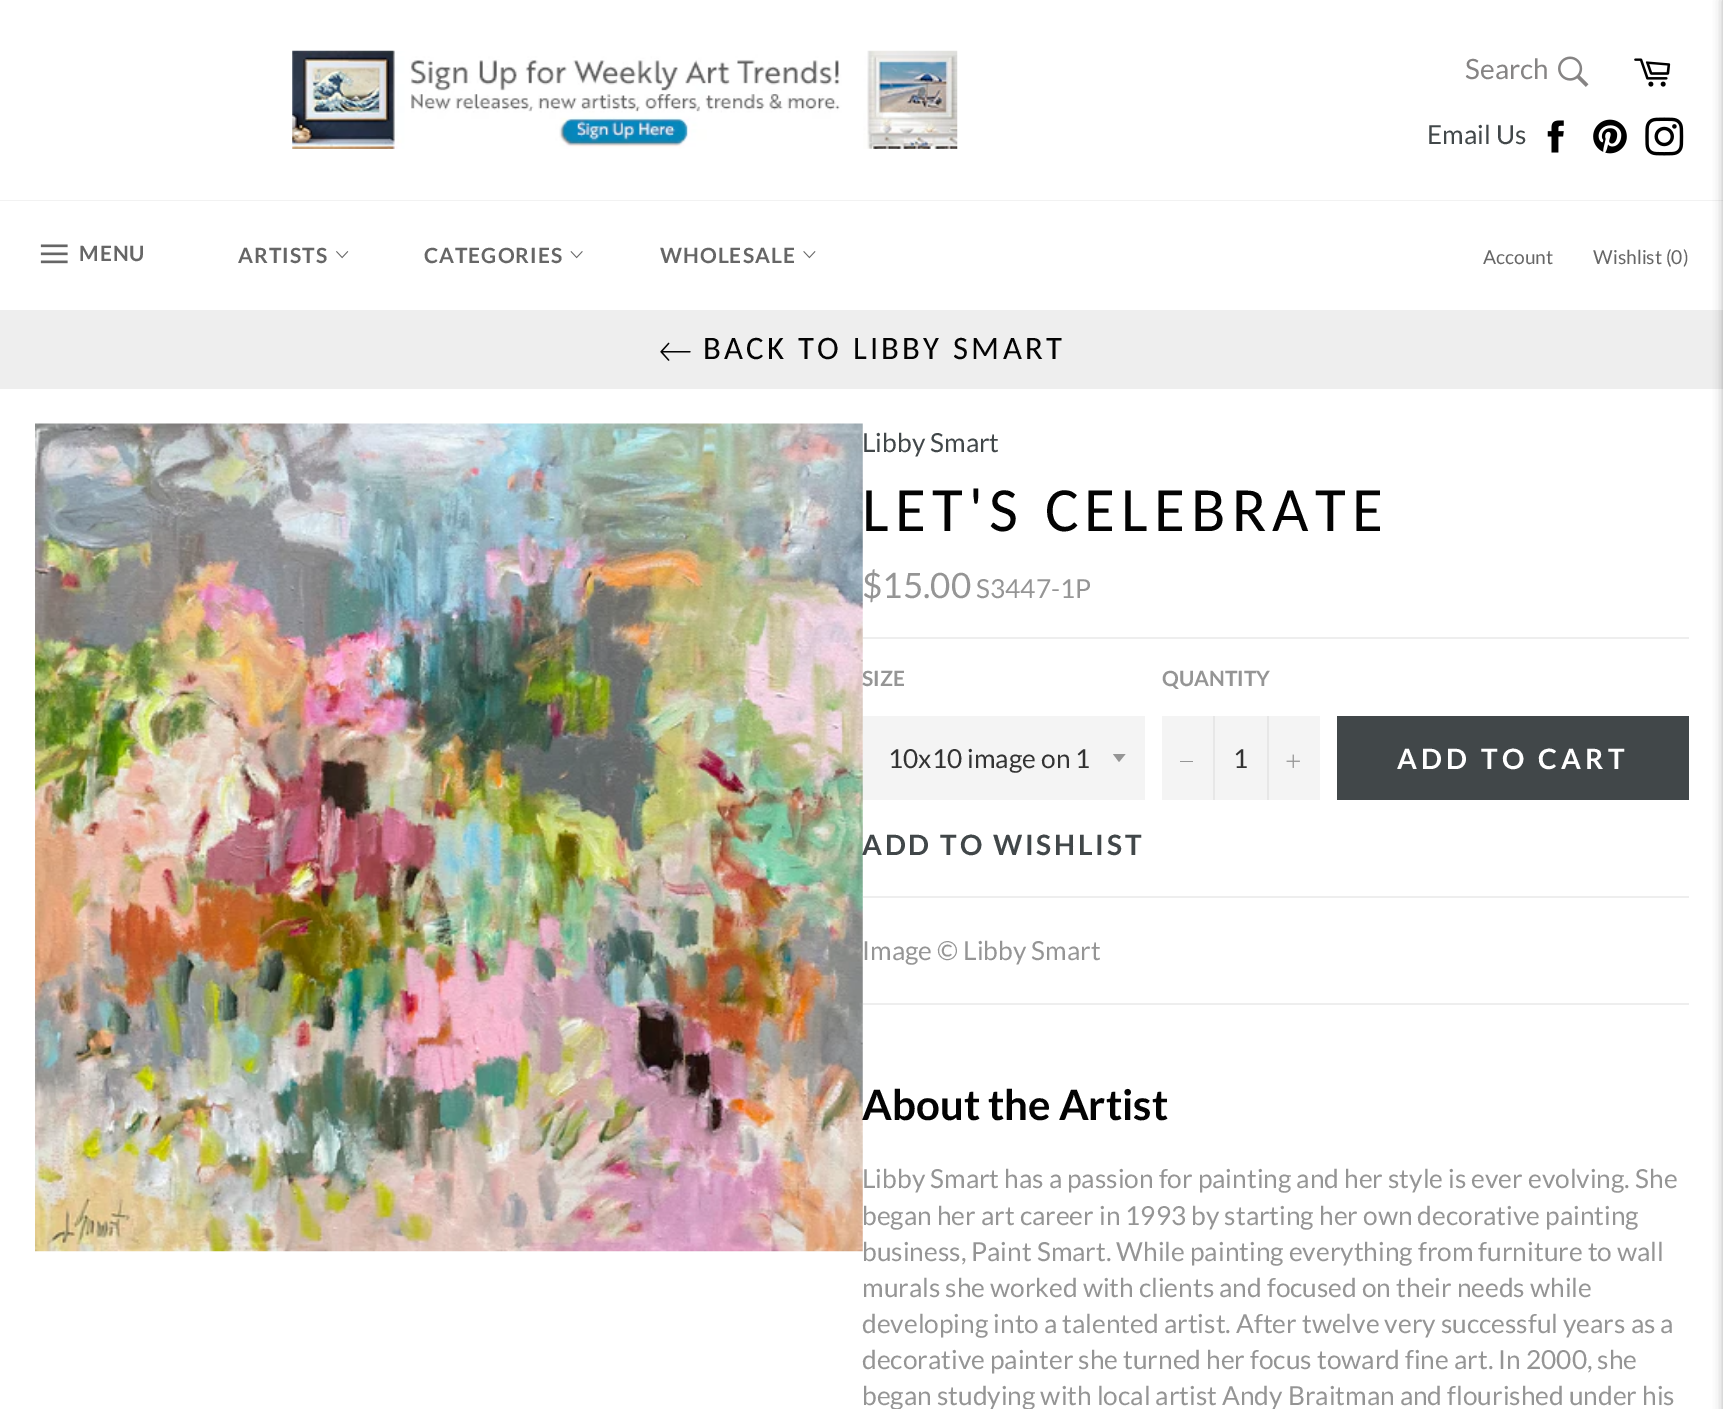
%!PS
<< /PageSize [1723 1409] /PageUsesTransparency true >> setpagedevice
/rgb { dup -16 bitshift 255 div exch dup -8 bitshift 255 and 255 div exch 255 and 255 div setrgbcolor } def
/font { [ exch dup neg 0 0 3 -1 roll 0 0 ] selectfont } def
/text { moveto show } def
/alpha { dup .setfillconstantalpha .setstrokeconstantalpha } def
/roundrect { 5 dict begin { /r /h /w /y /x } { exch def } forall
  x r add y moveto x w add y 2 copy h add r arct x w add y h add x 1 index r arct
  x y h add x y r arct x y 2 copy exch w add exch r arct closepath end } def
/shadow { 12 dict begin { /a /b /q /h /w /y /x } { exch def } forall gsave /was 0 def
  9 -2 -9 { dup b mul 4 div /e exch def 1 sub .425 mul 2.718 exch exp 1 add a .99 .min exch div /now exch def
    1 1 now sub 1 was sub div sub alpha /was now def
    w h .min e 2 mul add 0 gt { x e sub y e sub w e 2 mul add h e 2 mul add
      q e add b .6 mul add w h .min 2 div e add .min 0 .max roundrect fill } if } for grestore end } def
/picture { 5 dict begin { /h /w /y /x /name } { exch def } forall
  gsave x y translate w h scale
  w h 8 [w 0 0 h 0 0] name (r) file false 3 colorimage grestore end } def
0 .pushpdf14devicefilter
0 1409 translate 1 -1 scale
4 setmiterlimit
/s1 { /Lato-Regular 28 font 16#868484 rgb } def
/s2 { /Lato-Regular 26.25 font 16#414749 rgb } def
/s3 { /Lato-Regular 19.25 font 16#666666 rgb } def
/s4 { /Lato-Regular 35 font 16#959595 rgb } def
/s5 { /Lato-Regular 26.25 font 16#959595 rgb } def
/s6 { /Lato-Bold 21 font 16#959595 rgb } def
/s7 { /Lato-Regular 26.25 font 16#333333 rgb } def
/s8 { /Lato-Bold 42 font 16#030303 rgb } def
16#FFFFFF rgb
0 0 1723 1409 rectfill
(pic1.raw) 292 50 666 99 picture
s1
(Search) 1465 79 text
(pic2.raw) 1558 56 31 31 picture
(pic3.raw) 1634 58 37 29 picture
s2
(Email Us) 1427 144 text
(pic4.raw) 1547 120 17 33 picture
(pic5.raw) 1593 119 34 35 picture
(pic6.raw) 1645 117 39 39 picture
16#F2F2F2 rgb
0 200 1723 1 rectfill
(pic7.raw) 40 244 28 20 picture
/Lato-Bold 21 font
16#666666 rgb
79 261 moveto 1 0 (MENU) ashow
238 263 moveto 1 0 (ARTISTS) ashow
(pic8.raw) 336 251 13 8 picture
424 263 moveto 1 0 (CATEGORIES) ashow
(pic9.raw) 570 251 13 8 picture
660 263 moveto 1 0 (WHOLESALE) ashow
(pic10.raw) 803 251 13 8 picture
s3
(Account) 1483 264 text
(Wishlist \(0\)) 1593 264 text
16#EEEEEE rgb
0 310 1723 79 rectfill
(pic11.raw) 660 342 31 19 picture
/Carlito-Regular 32.75 font
16#030303 rgb
703 359 moveto 3.25 0 (BACK TO LIBBY SMART) ashow
(pic12.raw) 35 423 828 829 picture
s2
(Libby Smart) 862 452 text
/Carlito-Regular 63 font
16#030303 rgb
862 531 moveto 6.25 0 (LET'S CELEBRATE) ashow
s4
($15.00) 862 598 text
s5
(S3447-1P) 976 598 text
16#EEEEEE rgb
863 637 826 2 rectfill
s6
(SIZE) 862 686 text
16#F4F4F4 rgb
863 716 282 84 rectfill
16#959595 rgb
1113 754 moveto 1119 762 lineto 1125.5 754 lineto closepath fill
s7
(10x10 image on 1) 888 768 text
s6
(QUANTITY) 1162 686 text
16#F4F4F4 rgb
1162 716 158 84 rectfill
16#E7E7E7 rgb
1213 716 2 84 rectfill
16#959595 rgb
1180 761 13 1 rectfill
s7
(1) 1233 768 text
16#E7E7E7 rgb
1267 716 2 84 rectfill
(pic13.raw) 1286 754 14 14 picture
16#414749 rgb
1337 716 352 84 rectfill
/Lato-Bold 28 font
16#FFFFFF rgb
1397 769 moveto 4.25 0 (ADD TO CART) ashow
16#414749 rgb
862 855 moveto 2.75 0 (ADD TO WISHLIST) ashow
16#EEEEEE rgb
863 896 826 2 rectfill
s5
(Image © Libby Smart) 862 960 text
16#EEEEEE rgb
863 1003 826 2 rectfill
s8
(About the Artist) 862 1120 text
s5
(Libby Smart has a passion for painting and her style is ever evolving. She) 862 1188 text
(began her art career in 1993 by starting her own decorative painting) 862 1225 text
(business, Paint Smart. While painting everything from furniture to wall) 862 1261 text
(murals she worked with clients and focused on their needs while) 862 1297 text
(developing into a talented artist. After twelve very successful years as a) 862 1333 text
(decorative painter she turned her focus toward fine art. In 2000, she) 862 1369 text
(began studying with local artist Andy Braitman and flourished under his) 862 1405 text
16#000000 rgb
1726 0 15 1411 0 6 0.5 shadow
.poppdf14devicefilter showpage
